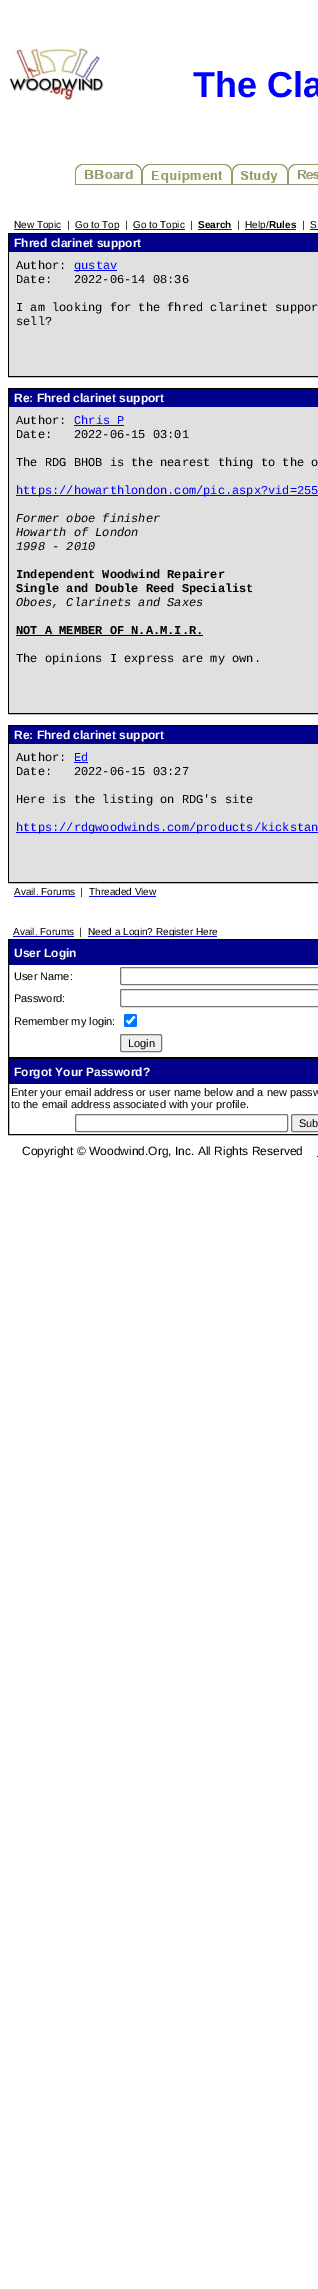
%!PS
<< /PageSize [318 2289] >> setpagedevice
/rgb { dup -16 bitshift 255 div exch dup -8 bitshift 255 and 255 div exch 255 and 255 div setrgbcolor } def
/font { [ exch dup neg 0 0 3 -1 roll 0 0 ] selectfont } def
/text { moveto show } def
/roundrect { 5 dict begin { /r /h /w /y /x } { exch def } forall
  x r add y moveto x w add y 2 copy h add r arct x w add y h add x 1 index r arct
  x y h add x y r arct x y 2 copy exch w add exch r arct closepath end } def
/picture { 5 dict begin { /h /w /y /x /name } { exch def } forall
  gsave x y translate w h scale
  w h 8 [w 0 0 h 0 0] name (r) file false 3 colorimage grestore end } def
0 2289 translate 1 -1 scale
4 setmiterlimit
/s1 { /LiberationSans-Bold 36 font 16#0000FF rgb } def
/s2 { /LiberationSans-Regular 10 font 16#000000 rgb } def
/s3 { /LiberationSans-Bold 10 font 16#000000 rgb } def
/s4 { /LiberationSans-Bold 12 font 16#FFFFFF rgb } def
/s5 { /LiberationMono-Regular 12 font 16#000000 rgb } def
/s6 { /LiberationMono-Regular 12 font 16#0000FF rgb } def
/s7 { /LiberationMono-Italic 12 font 16#000000 rgb } def
/s8 { /LiberationMono-Bold 12 font 16#000000 rgb } def
/s9 { /LiberationSans-Regular 11 font 16#000000 rgb } def
/s10 { /LiberationSans-Regular 12 font 16#000000 rgb } def
16#FFFFFF rgb
0 0 318 2289 rectfill
(pic1.raw) 9 47 95 54 picture
s1
(The Cla) 193 97 text
(pic2.raw) 75 164 67 22 picture
(pic3.raw) 142 164 90 22 picture
(pic4.raw) 232 164 56 22 picture
(pic5.raw) 288 164 30 22 picture
14 229 47 1 rectfill
s2
(New Topic) 14 228 text
(|) 67 228 text
16#0000FF rgb
75 229 44 1 rectfill
s2
(Go to Top) 75 228 text
(|) 125 228 text
16#0000FF rgb
133 229 52 1 rectfill
s2
(Go to Topic) 133 228 text
(|) 190 228 text
s3
(Search) 198 228 text
16#0000FF rgb
198 229 34 1 rectfill
s2
(|) 237 228 text
16#0000FF rgb
245 229 51 1 rectfill
s2
(Help/) 245 228 text
s3
(Rules) 269 228 text
s2
(|) 302 228 text
(S) 310 228 text
16#0000FF rgb
310 229 8 1 rectfill
16#000000 rgb
8.5 233.5 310 143 rectstroke
16#00008A rgb
9 234 309 18 rectfill
s4
(Fhred clarinet support) 14 247 text
16#E0E0E0 rgb
9 252 309 124 rectfill
s5
(Author:) 16 269 text
16#0000FF rgb
74 270 43 1 rectfill
(gustav) 74 269 text
s5
(Date:   2022-06-14 08:36) 16 283 text
(I am looking for the fhred clarinet suppor) 16 311 text
(sell?) 16 325 text
8.5 388.5 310 325 rectstroke
16#00008A rgb
9 389 309 18 rectfill
s4
(Re: Fhred clarinet support) 14 402 text
16#E0E0E0 rgb
9 407 309 306 rectfill
s5
(Author:) 16 424 text
s6
(Chris P) 74 424 text
74 425 50 1 rectfill
s5
(Date:   2022-06-15 03:01) 16 438 text
(The RDG BHOB is the nearest thing to the o) 16 466 text
16#0000FF rgb
16 495 302 1 rectfill
(https://howarthlondon.com/pic.aspx?vid=255) 16 494 text
s7
(Former oboe finisher) 16 522 text
(Howarth of London) 16 536 text
(1998 - 2010) 16 550 text
s8
(Independent Woodwind Repairer) 16 578 text
(Single and Double Reed Specialist) 16 592 text
s7
(Oboes, Clarinets and Saxes) 16 606 text
s8
(NOT A MEMBER OF N.A.M.I.R.) 16 634 text
16 635 187 1 rectfill
s5
(The opinions I express are my own.) 16 662 text
8.5 725.5 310 157 rectstroke
16#00008A rgb
9 726 309 18 rectfill
s4
(Re: Fhred clarinet support) 14 739 text
16#E0E0E0 rgb
9 744 309 138 rectfill
s5
(Author:) 16 761 text
s6
(Ed) 74 761 text
74 762 14 1 rectfill
s5
(Date:   2022-06-15 03:27) 16 775 text
(Here is the listing on RDG's site) 16 803 text
16#0000FF rgb
16 832 302 1 rectfill
(https://rdgwoodwinds.com/products/kickstan) 16 831 text
s2
(Avail. Forums) 14 895 text
16#0000FF rgb
14 896 61 1 rectfill
s2
(|) 80 895 text
(Threaded View) 89 895 text
16#0000FF rgb
89 896 67 1 rectfill
s2
(Avail. Forums) 13 935 text
16#0000FF rgb
13 936 61 1 rectfill
s2
(|) 79 935 text
16#0000FF rgb
88 936 129 1 rectfill
s2
(Need a Login? Register Here) 88 935 text
8.5 939.5 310 118 rectstroke
16#00008A rgb
9 940 309 25 rectfill
s4
(User Login) 14 957 text
s9
(User Name:) 14 980 text
16#767676 rgb
120.5 967.5 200 17 1.5 roundrect stroke
s9
(Password:) 14 1002 text
16#767676 rgb
120.5 989.5 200 17 1.5 roundrect stroke
s9
(Remember my login:) 14 1025 text
16#0075FF rgb
124 1014 13 13 2 roundrect fill
16#FFFFFF rgb
2.1 setlinewidth
126.5 1020.5 moveto 129 1023 lineto 134.5 1016.5 lineto stroke
16#EFEFEF rgb
120.5 1034.5 41 17 1.5 roundrect gsave fill grestore
16#767676 rgb
1 setlinewidth
stroke
s9
(Login) 128 1047 text
8.5 1058.5 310 76 rectstroke
16#00008A rgb
9 1059 309 25 rectfill
s4
(Forgot Your Password?) 14 1076 text
s9
(Enter your email address or user name below and a new passw) 11 1096 text
(to the email address associated with your profile.) 11 1108 text
16#767676 rgb
75.5 1114.5 212 17 1.5 roundrect stroke
16#EFEFEF rgb
291.5 1114.5 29 17 1.5 roundrect gsave fill grestore
16#767676 rgb
stroke
s9
(Sub) 299 1127 text
s10
(Copyright © Woodwind.Org, Inc. All Rights Reserved) 22 1155 text
16#0000FF rgb
317 1156 1 1 rectfill
showpage
